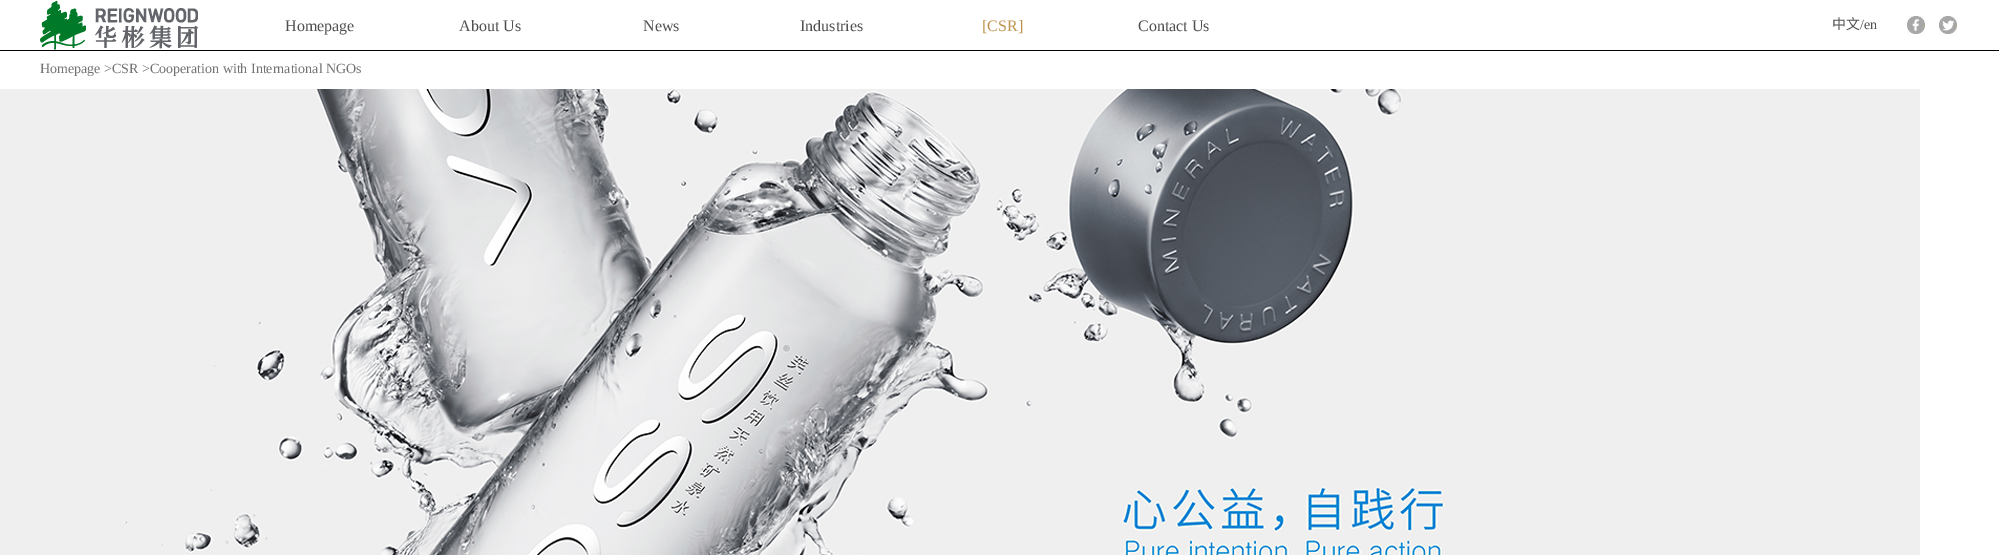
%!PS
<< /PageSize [1999 555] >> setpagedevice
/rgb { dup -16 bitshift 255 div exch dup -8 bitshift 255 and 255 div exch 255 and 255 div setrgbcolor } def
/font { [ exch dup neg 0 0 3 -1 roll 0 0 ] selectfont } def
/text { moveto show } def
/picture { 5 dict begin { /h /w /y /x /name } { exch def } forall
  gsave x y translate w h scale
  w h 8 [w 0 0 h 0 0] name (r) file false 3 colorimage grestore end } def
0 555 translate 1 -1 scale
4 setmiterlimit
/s1 { /LiberationSerif-Regular 16 font 16#4F4F4F rgb } def
/s2 { /LiberationSerif-Regular 16 font 16#BD934C rgb } def
/s3 { /NotoSansCJKSC-Regular 14 font 16#4F4F4F rgb } def
/s4 { /LiberationSerif-Regular 14 font 16#4F4F4F rgb } def
/s5 { /LiberationSerif-Regular 14 font 16#727272 rgb } def
16#FFFFFF rgb
0 0 1999 555 rectfill
(pic1.raw) 40 1 158 49 picture
s1
(Homepage) 285 31 text
(About Us) 459 31 text
(News) 643 31 text
(Industries) 800 31 text
s2
([CSR]) 982 31 text
s1
(Contact Us) 1138 31 text
s3
(中文) 1832 29 text
s4
(/en) 1860 29 text
(pic2.raw) 1907 16 18 18 picture
(pic3.raw) 1939 16 18 18 picture
16#000000 rgb
0 50 1999 1 rectfill
s5
(Homepage >CSR >Cooperation with International NGOs) 40 73 text
(pic4.raw) 0 89 1920 466 picture
showpage
